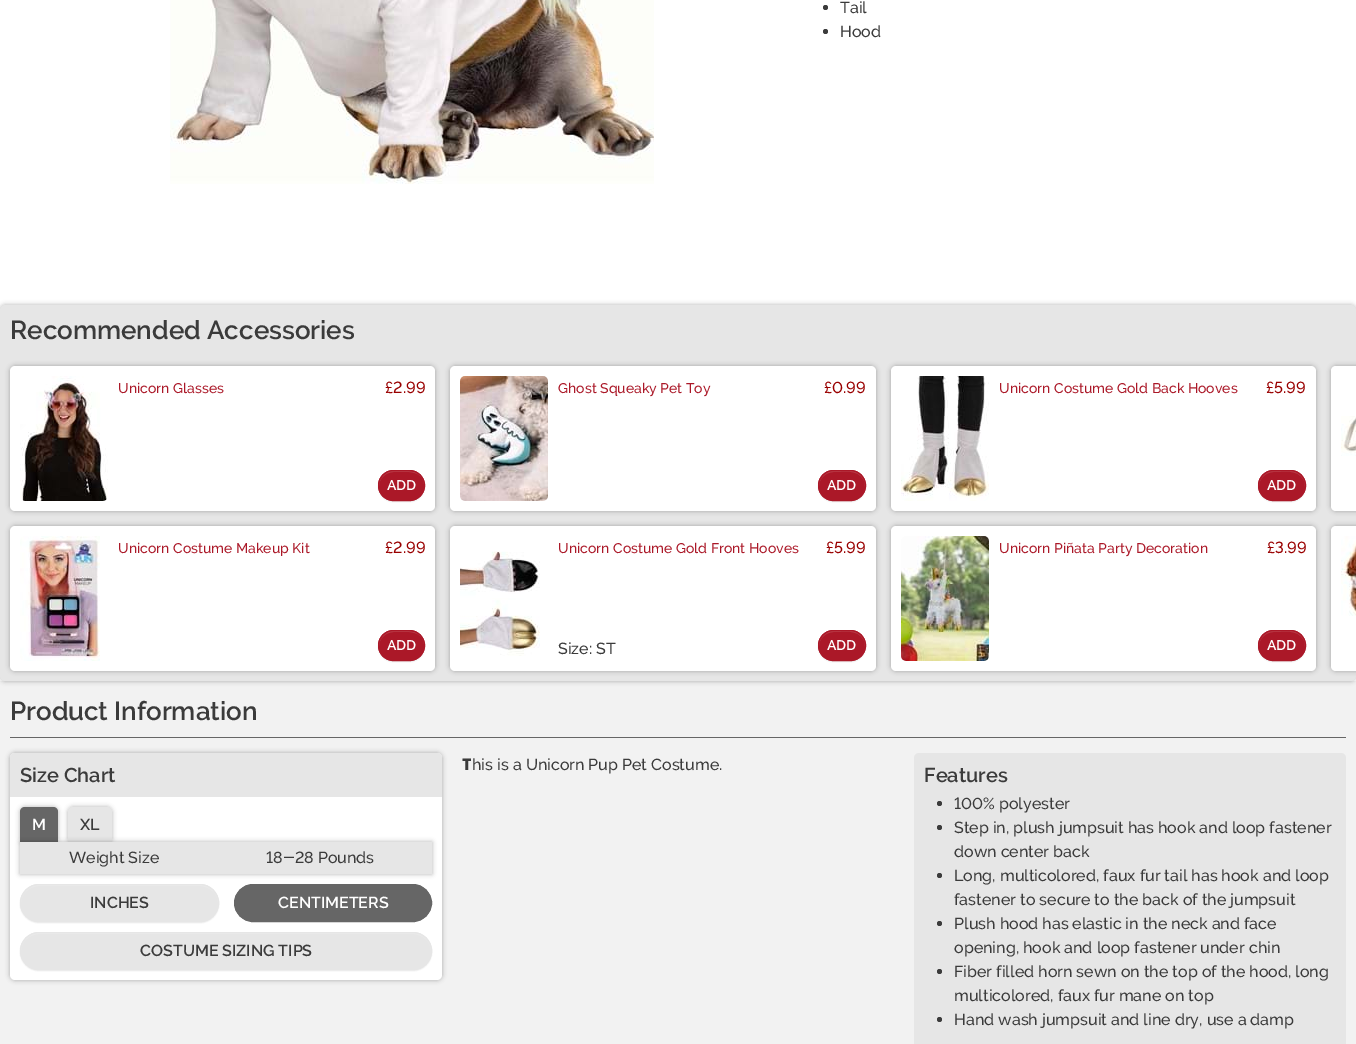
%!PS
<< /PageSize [1356 1044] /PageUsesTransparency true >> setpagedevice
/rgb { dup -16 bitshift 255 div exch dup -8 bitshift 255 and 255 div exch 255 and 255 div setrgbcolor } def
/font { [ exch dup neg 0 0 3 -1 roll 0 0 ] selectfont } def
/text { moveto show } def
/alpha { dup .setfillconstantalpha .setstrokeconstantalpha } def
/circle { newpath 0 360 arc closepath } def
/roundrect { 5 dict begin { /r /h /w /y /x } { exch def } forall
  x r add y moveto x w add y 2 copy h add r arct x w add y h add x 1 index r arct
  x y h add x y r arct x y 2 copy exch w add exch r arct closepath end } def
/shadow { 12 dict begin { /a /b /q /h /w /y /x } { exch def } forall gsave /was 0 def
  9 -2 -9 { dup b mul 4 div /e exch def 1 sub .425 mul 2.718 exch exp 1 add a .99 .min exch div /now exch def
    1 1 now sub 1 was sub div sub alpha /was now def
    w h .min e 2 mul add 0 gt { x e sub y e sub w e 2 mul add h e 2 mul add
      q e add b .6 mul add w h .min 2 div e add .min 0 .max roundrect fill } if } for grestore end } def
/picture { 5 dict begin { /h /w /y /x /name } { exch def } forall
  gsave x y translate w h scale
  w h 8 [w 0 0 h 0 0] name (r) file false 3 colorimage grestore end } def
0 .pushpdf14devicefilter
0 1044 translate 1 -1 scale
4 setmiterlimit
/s1 { /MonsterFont-Medium 16 font 16#3B3B3B rgb } def
/s2 { /MonsterFont-SemiBold 26 font 16#3B3B3B rgb } def
/s3 { /MonsterFont-Medium 14 font 16#AB1828 rgb } def
/s4 { /MonsterFont-Medium 16 font 16#990000 rgb } def
/s5 { /MonsterFont-SemiBold 14 font 16#FFFFFF rgb } def
/s6 { /MonsterFont-SemiBold 20 font 16#3B3B3B rgb } def
/s7 { /MonsterFont-SemiBold 16 font 16#FFFFFF rgb } def
/s8 { /MonsterFont-SemiBold 16 font 16#3B3B3B rgb } def
/s9 { /NotoSans-Black 16 font 16#3B3B3B rgb } def
16#FFFFFF rgb
0 0 1356 1044 rectfill
(pic1.raw) 170 0 484 184 picture
16#3B3B3B rgb
825.5 7.5 2.5 circle fill
s1
(Tail) 840 13 text
825.5 31.5 2.5 circle fill
(Hood) 840 37 text
16#F2F2F2 rgb
0 681 1356 363 rectfill
16#000000 rgb
0 305 1356 376 5 2.5 0.3 shadow
16#E6E6E6 rgb
0 305 1356 376 5 roundrect fill
s2
(Recommended Accessories) 10 339 text
16#000000 rgb
10 366 425 145 5 2.5 0.3 shadow
16#FFFFFF rgb
10 366 425 145 5 roundrect fill
(pic2.raw) 20 376 88 125 picture
s3
(Unicorn Glasses) 118 393 text
s4
(£2.99) 385 393 text
16#000000 rgb
378 471 47 31 15.5 0.5 0.07 shadow
16#AB1828 rgb
378 470 47 31 15.5 roundrect fill
16#B83B48 rgb
394 472 moveto 405 472 422 469 424 484 curveto 422 471 411 471 402 471 curveto 391 471 lineto 384 473 379 479 379 486 curveto 379 479 385 472 394 472 curveto closepath fill
16#AB1828 rgb
378.5 470.5 46 30 15 roundrect stroke
s5
(ADD) 387 490 text
16#000000 rgb
450 366 426 145 5 2.5 0.3 shadow
16#FFFFFF rgb
450 366 426 145 5 roundrect fill
(pic3.raw) 460 376 88 125 picture
s3
(Ghost Squeaky Pet Toy) 558 393 text
s4
(£0.99) 824 393 text
16#000000 rgb
818 471 48 31 15.5 0.5 0.07 shadow
16#AB1828 rgb
818 470 48 31 15.5 roundrect fill
16#B83B48 rgb
834 472 moveto 844 472 857 469 863 479 curveto 865 481 865 484 865 487 curveto 866 480 861 473 853 471 curveto 831 471 lineto 824 473 819 479 819 486 curveto 819 479 825 472 834 472 curveto closepath fill
16#AB1828 rgb
818.5 470.5 47 30 15 roundrect stroke
s5
(ADD) 827 490 text
16#000000 rgb
891 366 425 145 5 2.5 0.3 shadow
16#FFFFFF rgb
891 366 425 145 5 roundrect fill
(pic4.raw) 901 376 88 125 picture
s3
(Unicorn Costume Gold Back Hooves) 999 393 text
s4
(£5.99) 1266 393 text
16#000000 rgb
1258 471 48 31 15.5 0.5 0.07 shadow
16#AB1828 rgb
1258 470 48 31 15.5 roundrect fill
16#B83B48 rgb
1274 472 moveto 1284 472 1297 469 1303 479 curveto 1305 481 1305 484 1305 487 curveto 1306 480 1301 473 1293 471 curveto 1271 471 lineto 1264 473 1259 479 1259 486 curveto 1259 479 1265 472 1274 472 curveto closepath fill
16#AB1828 rgb
1258.5 470.5 47 30 15 roundrect stroke
s5
(ADD) 1267 490 text
16#000000 rgb
1331 366 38 145 5 2.5 0.3 shadow
16#FFFFFF rgb
1336 366 moveto 1356 366 lineto 1356 511 lineto 1336 511 lineto 1333 511 1331 509 1331 506 curveto 1331 371 lineto 1331 368 1333 366 1336 366 curveto closepath fill
(pic5.raw) 1341 416 15 40 picture
16#000000 rgb
10 526 425 145 5 2.5 0.3 shadow
16#FFFFFF rgb
10 526 425 145 5 roundrect fill
(pic6.raw) 20 536 80 125 picture
s3
(Unicorn Costume Makeup Kit) 118 553 text
s4
(£2.99) 385 553 text
16#000000 rgb
378 631 47 31 15.5 0.5 0.07 shadow
16#AB1828 rgb
378 630 47 31 15.5 roundrect fill
16#B83B48 rgb
394 632 moveto 405 632 422 629 424 644 curveto 422 631 411 631 402 631 curveto 391 631 lineto 384 633 379 639 379 646 curveto 379 639 385 632 394 632 curveto closepath fill
16#AB1828 rgb
378.5 630.5 46 30 15 roundrect stroke
s5
(ADD) 387 650 text
16#000000 rgb
450 526 426 145 5 2.5 0.3 shadow
16#FFFFFF rgb
450 526 426 145 5 roundrect fill
(pic7.raw) 460 551 80 105 picture
s3
(Unicorn Costume Gold Front Hooves) 558 553 text
s4
(£5.99) 826 553 text
s1
(Size: ST) 558 654 text
16#000000 rgb
818 631 48 31 15.5 0.5 0.07 shadow
16#AB1828 rgb
818 630 48 31 15.5 roundrect fill
16#B83B48 rgb
834 632 moveto 844 632 857 629 863 639 curveto 865 641 865 644 865 647 curveto 866 640 861 633 853 631 curveto 831 631 lineto 824 633 819 639 819 646 curveto 819 639 825 632 834 632 curveto closepath fill
16#AB1828 rgb
818.5 630.5 47 30 15 roundrect stroke
s5
(ADD) 827 650 text
16#000000 rgb
891 526 425 145 5 2.5 0.3 shadow
16#FFFFFF rgb
891 526 425 145 5 roundrect fill
(pic8.raw) 901 536 88 125 picture
s3
(Unicorn Piñata Party Decoration) 999 553 text
s4
(£3.99) 1267 553 text
16#000000 rgb
1258 631 48 31 15.5 0.5 0.07 shadow
16#AB1828 rgb
1258 630 48 31 15.5 roundrect fill
16#B83B48 rgb
1274 632 moveto 1284 632 1297 629 1303 639 curveto 1305 641 1305 644 1305 647 curveto 1306 640 1301 633 1293 631 curveto 1271 631 lineto 1264 633 1259 639 1259 646 curveto 1259 639 1265 632 1274 632 curveto closepath fill
16#AB1828 rgb
1258.5 630.5 47 30 15 roundrect stroke
s5
(ADD) 1267 650 text
16#000000 rgb
1331 526 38 145 5 2.5 0.3 shadow
16#FFFFFF rgb
1336 526 moveto 1356 526 lineto 1356 671 lineto 1336 671 lineto 1333 671 1331 669 1331 666 curveto 1331 531 lineto 1331 528 1333 526 1336 526 curveto closepath fill
(pic9.raw) 1341 536 15 80 picture
s2
(Product Information) 10 720 text
16#666666 rgb
10 737 1336 1 rectfill
16#000000 rgb
10 753 432 227 5 2.5 0.3 shadow
16#FFFFFF rgb
10 753 432 227 5 roundrect fill
16#E6E6E6 rgb
15 753 moveto 437 753 lineto 440 753 442 755 442 758 curveto 442 797 lineto 10 797 lineto 10 758 lineto 10 755 12 753 15 753 curveto closepath fill
s6
(Size Chart) 20 782 text
16#000000 rgb
20 807 38 36 5 2.5 0.3 shadow
16#666666 rgb
25 807 moveto 53 807 lineto 56 807 58 809 58 812 curveto 58 843 lineto 20 843 lineto 20 812 lineto 20 809 22 807 25 807 curveto closepath fill
s7
(M) 32 830 text
16#000000 rgb
68 807 44 36 5 2.5 0.3 shadow
16#E6E6E6 rgb
73 807 moveto 107 807 lineto 110 807 112 809 112 812 curveto 112 843 lineto 68 843 lineto 68 812 lineto 68 809 70 807 73 807 curveto closepath fill
s8
(XL) 80 830 text
16#000000 rgb
20 842 412 32 0 2.5 0.3 shadow
16#E6E6E6 rgb
20 842 412 32 rectfill
s1
(Weight Size) 69 863 text
(18-28 Pounds) 266 863 text
16#000000 rgb
20 885 199 38 19 0.5 0.07 shadow
16#E6E6E6 rgb
20 884 199 38 19 roundrect fill
16#EAEAEA rgb
39 886 moveto 200 886 lineto 210 886 218 894 218 903 curveto 218 893 210 885 200 885 curveto 39 885 lineto 29 885 21 893 21 903 curveto 21 894 29 886 39 886 curveto closepath fill
16#E6E6E6 rgb
20.5 884.5 198 37 18.5 roundrect stroke
s8
(INCHES) 90 908 text
16#666666 rgb
234.5 884.5 197 37 18.5 roundrect gsave fill grestore
stroke
s7
(CENTIMETERS) 278 908 text
16#000000 rgb
20 933 412 38 19 0.5 0.07 shadow
16#E6E6E6 rgb
20 932 412 38 19 roundrect fill
16#EAEAEA rgb
39 934 moveto 413 934 lineto 423 934 431 942 431 951 curveto 431 941 423 933 413 933 curveto 39 933 lineto 29 933 21 941 21 951 curveto 21 942 29 934 39 934 curveto closepath fill
16#E6E6E6 rgb
20.5 932.5 411 37 18.5 roundrect stroke
s8
(COSTUME SIZING TIPS) 140 956 text
s9
(T) 462 770 text
s1
(his is a Unicorn Pup Pet Costume.) 472 770 text
16#E6E6E6 rgb
914 753 432 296 5 roundrect fill
s6
(Features) 924 782 text
939.5 803.5 2.5 circle fill
s1
(100% polyester) 954 809 text
939.5 827.5 2.5 circle fill
(Step in, plush jumpsuit has hook and loop fastener) 954 833 text
(down center back) 954 857 text
939.5 875.5 2.5 circle fill
(Long, multicolored, faux fur tail has hook and loop) 954 881 text
(fastener to secure to the back of the jumpsuit) 954 905 text
939.5 923.5 2.5 circle fill
(Plush hood has elastic in the neck and face) 954 929 text
(opening, hook and loop fastener under chin) 954 953 text
939.5 971.5 2.5 circle fill
(Fiber filled horn sewn on the top of the hood, long) 954 977 text
(multicolored, faux fur mane on top) 954 1001 text
939.5 1019.5 2.5 circle fill
(Hand wash jumpsuit and line dry, use a damp) 954 1025 text
.poppdf14devicefilter showpage
